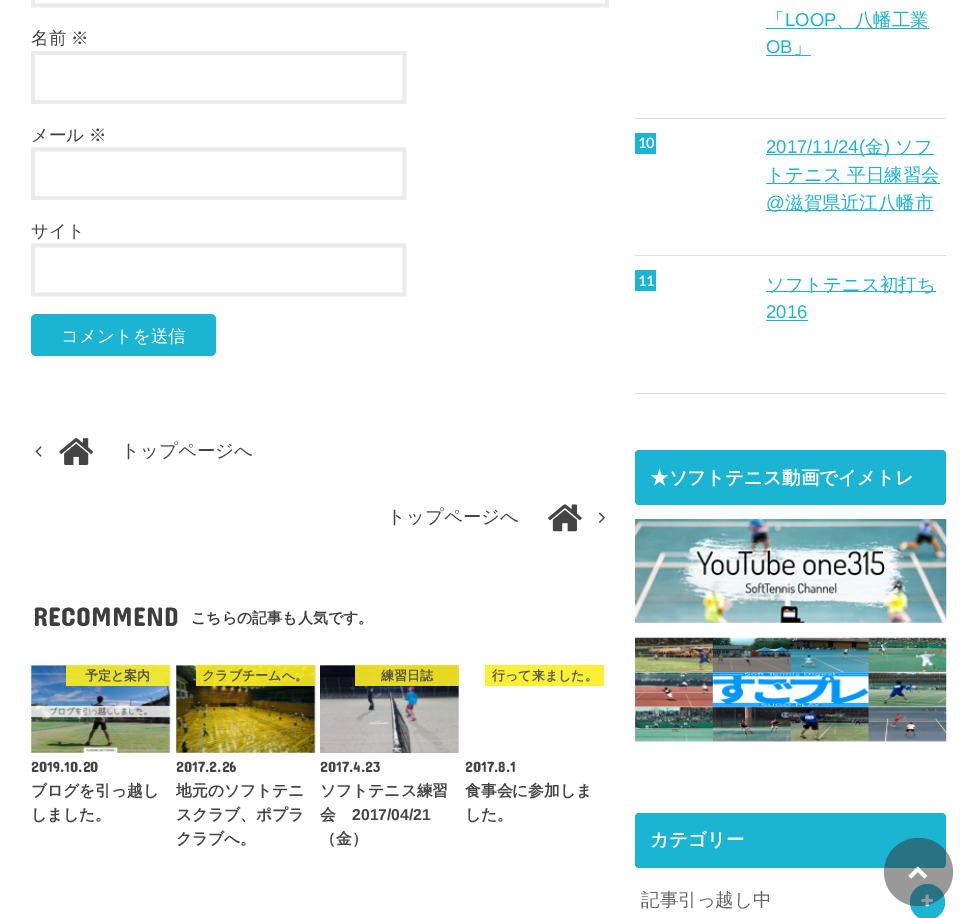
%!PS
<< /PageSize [977 918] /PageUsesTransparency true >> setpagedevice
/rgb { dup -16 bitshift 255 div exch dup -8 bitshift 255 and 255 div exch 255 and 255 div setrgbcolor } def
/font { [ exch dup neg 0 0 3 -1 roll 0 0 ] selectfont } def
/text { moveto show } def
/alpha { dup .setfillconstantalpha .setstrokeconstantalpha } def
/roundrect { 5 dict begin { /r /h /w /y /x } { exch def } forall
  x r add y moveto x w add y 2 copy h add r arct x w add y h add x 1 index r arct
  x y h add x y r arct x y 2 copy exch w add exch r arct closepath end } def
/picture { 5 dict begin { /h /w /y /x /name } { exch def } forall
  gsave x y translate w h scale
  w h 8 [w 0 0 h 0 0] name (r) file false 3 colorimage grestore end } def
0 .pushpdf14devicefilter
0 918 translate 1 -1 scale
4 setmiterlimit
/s1 { /WenQuanYiZenHei-Medium 17.5 font 16#3E3E3E rgb } def
/s2 { /WenQuanYiZenHei-Medium 17.5 font 16#FFFFFF rgb } def
/s3 { /WenQuanYiZenHei-Medium 18.5 font 16#444444 rgb } def
/s4 { /ConcertOne-Regular 27 font 16#3E3E3E rgb } def
/s5 { /WenQuanYiZenHei-Bold 15 font 16#3E3E3E rgb } def
/s6 { /WenQuanYiZenHei-Bold 13 font 16#555442 rgb } def
/s7 { /ConcertOne-Regular 15 font 16#444444 rgb } def
/s8 { /WenQuanYiZenHei-Bold 15.75 font 16#444444 rgb } def
/s9 { /LiberationSans-Bold 15.75 font 16#444444 rgb } def
/s10 { /WenQuanYiZenHei-Bold 13 font 16#575757 rgb } def
/s11 { /WenQuanYiZenHei-Medium 18.5 font 16#1BB4D3 rgb } def
/s12 { /LiberationSans-Regular 18.5 font 16#1BB4D3 rgb } def
/s13 { /Lato-Bold 14 font 16#FFFFFF rgb } def
/s14 { /WenQuanYiZenHei-Bold 18.5 font 16#FFFFFF rgb } def
/s15 { /WenQuanYiZenHei-Medium 18.5 font 16#666666 rgb } def
16#FFFFFF rgb
0 0 977 918 rectfill
16#EBEBEB rgb
3.8 setlinewidth
33 -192 moveto 607 -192 lineto 607 5.5 lineto 33 5.5 lineto closepath stroke
s1
(名前) 31 44 text
(※) 71 44 text
16#EBEBEB rgb
33 53 moveto 404.5 53 lineto 404.5 102 lineto 33 102 lineto closepath stroke
s1
(メール) 31 141 text
(※) 89 141 text
16#EBEBEB rgb
33 149.5 moveto 404.5 149.5 lineto 404.5 198 lineto 33 198 lineto closepath stroke
s1
(サイト) 31 237 text
16#EBEBEB rgb
33 245.5 moveto 404.5 245.5 lineto 404.5 294.5 lineto 33 294.5 lineto closepath stroke
16#1BB4D3 rgb
31 314 185 42 5 roundrect fill
s2
(コメントを送信) 61 342 text
(pic1.raw) 35 446 7 11 picture
(pic2.raw) 59 438 34 27 picture
s3
(トップページへ) 121 457 text
(トップページへ) 387 523 text
(pic3.raw) 548 504 34 28 picture
(pic4.raw) 598 512 7 11 picture
s4
(RECOMMEND) 33 626 text
s5
(こちらの記事も人気です。) 191 623 text
(pic5.raw) 31 665 140 88 picture
0.9 alpha
16#FCEE21 rgb
66 665 104 21 rectfill
1 alpha
s6
(予定と案内) 85 680 text
s7
(2019.10.20) 31 772 text
s8
(ブログを引っ越し) 31 796 text
(しました。) 31 820 text
(pic6.raw) 176 665 140 88 picture
0.9 alpha
16#FCEE21 rgb
196 665 119 21 rectfill
1 alpha
s6
(クラブチームへ。) 202 680 text
s7
(2017.2.26) 176 772 text
s8
(地元のソフトテニ) 176 796 text
(スクラブ、ポプラ) 176 820 text
(クラブへ。) 176 844 text
(pic7.raw) 320 665 139 88 picture
0.9 alpha
16#FCEE21 rgb
355 665 104 21 rectfill
1 alpha
s6
(練習日誌) 381 680 text
s7
(2017.4.23) 320 772 text
s8
(ソフトテニス練習) 320 796 text
(会) 320 820 text
s9
(2017/04/21) 352 820 text
s8
(（金）) 320 844 text
16#FCF037 rgb
485 665 119 21 rectfill
s10
(行って来ました。) 492 680 text
s7
(2017.8.1) 465 772 text
s8
(食事会に参加しま) 465 796 text
(した。) 465 820 text
16#DDDDDD rgb
635 118 311 1 rectfill
s11
(「) 766 26 text
s12
(LOOP) 785 26 text
766 28 163 1 rectfill
s11
(、八幡工業) 836 26 text
s12
(OB) 766 53 text
s11
(」) 793 53 text
766 55 45 1 rectfill
16#DDDDDD rgb
635 255 311 1 rectfill
16#1BB4D3 rgb
635 133 21 21 rectfill
s13
(10) 638 148 text
16#1BB4D3 rgb
766 154 168 1 rectfill
s12
(2017/11/24\() 766 153 text
s11
(金) 865 153 text
s12
(\)) 884 153 text
s11
(ソフ) 895 153 text
766 183 174 1 rectfill
(トテニス 平日練習会) 766 181 text
766 210 168 1 rectfill
s12
(@) 766 209 text
s11
(滋賀県近江八幡市) 785 209 text
16#DDDDDD rgb
635 393 311 1 rectfill
16#1BB4D3 rgb
635 270 21 21 rectfill
s13
(11) 638 286 text
16#1BB4D3 rgb
766 291 170 1 rectfill
s11
(ソフトテニス初打ち) 766 291 text
s12
(2016) 766 318 text
766 320 42 1 rectfill
635 450 311 55 4 roundrect fill
s14
(★ソフトテニス動画でイメトレ) 650 484 text
(pic8.raw) 635 519 312 104 picture
(pic9.raw) 635 637 312 105 picture
16#1BB4D3 rgb
635 813 311 55 4 roundrect fill
s14
(カテゴリー) 650 846 text
s15
(記事引っ越し中) 641 906 text
16#1BB4D3 rgb
910 884 35 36 17.5 roundrect fill
(pic10.raw) 921 894 12 13 picture
0.5 alpha
16#333333 rgb
884 838 69 68 34 roundrect fill
1 alpha
(pic11.raw) 908 866 19 13 picture
.poppdf14devicefilter showpage
